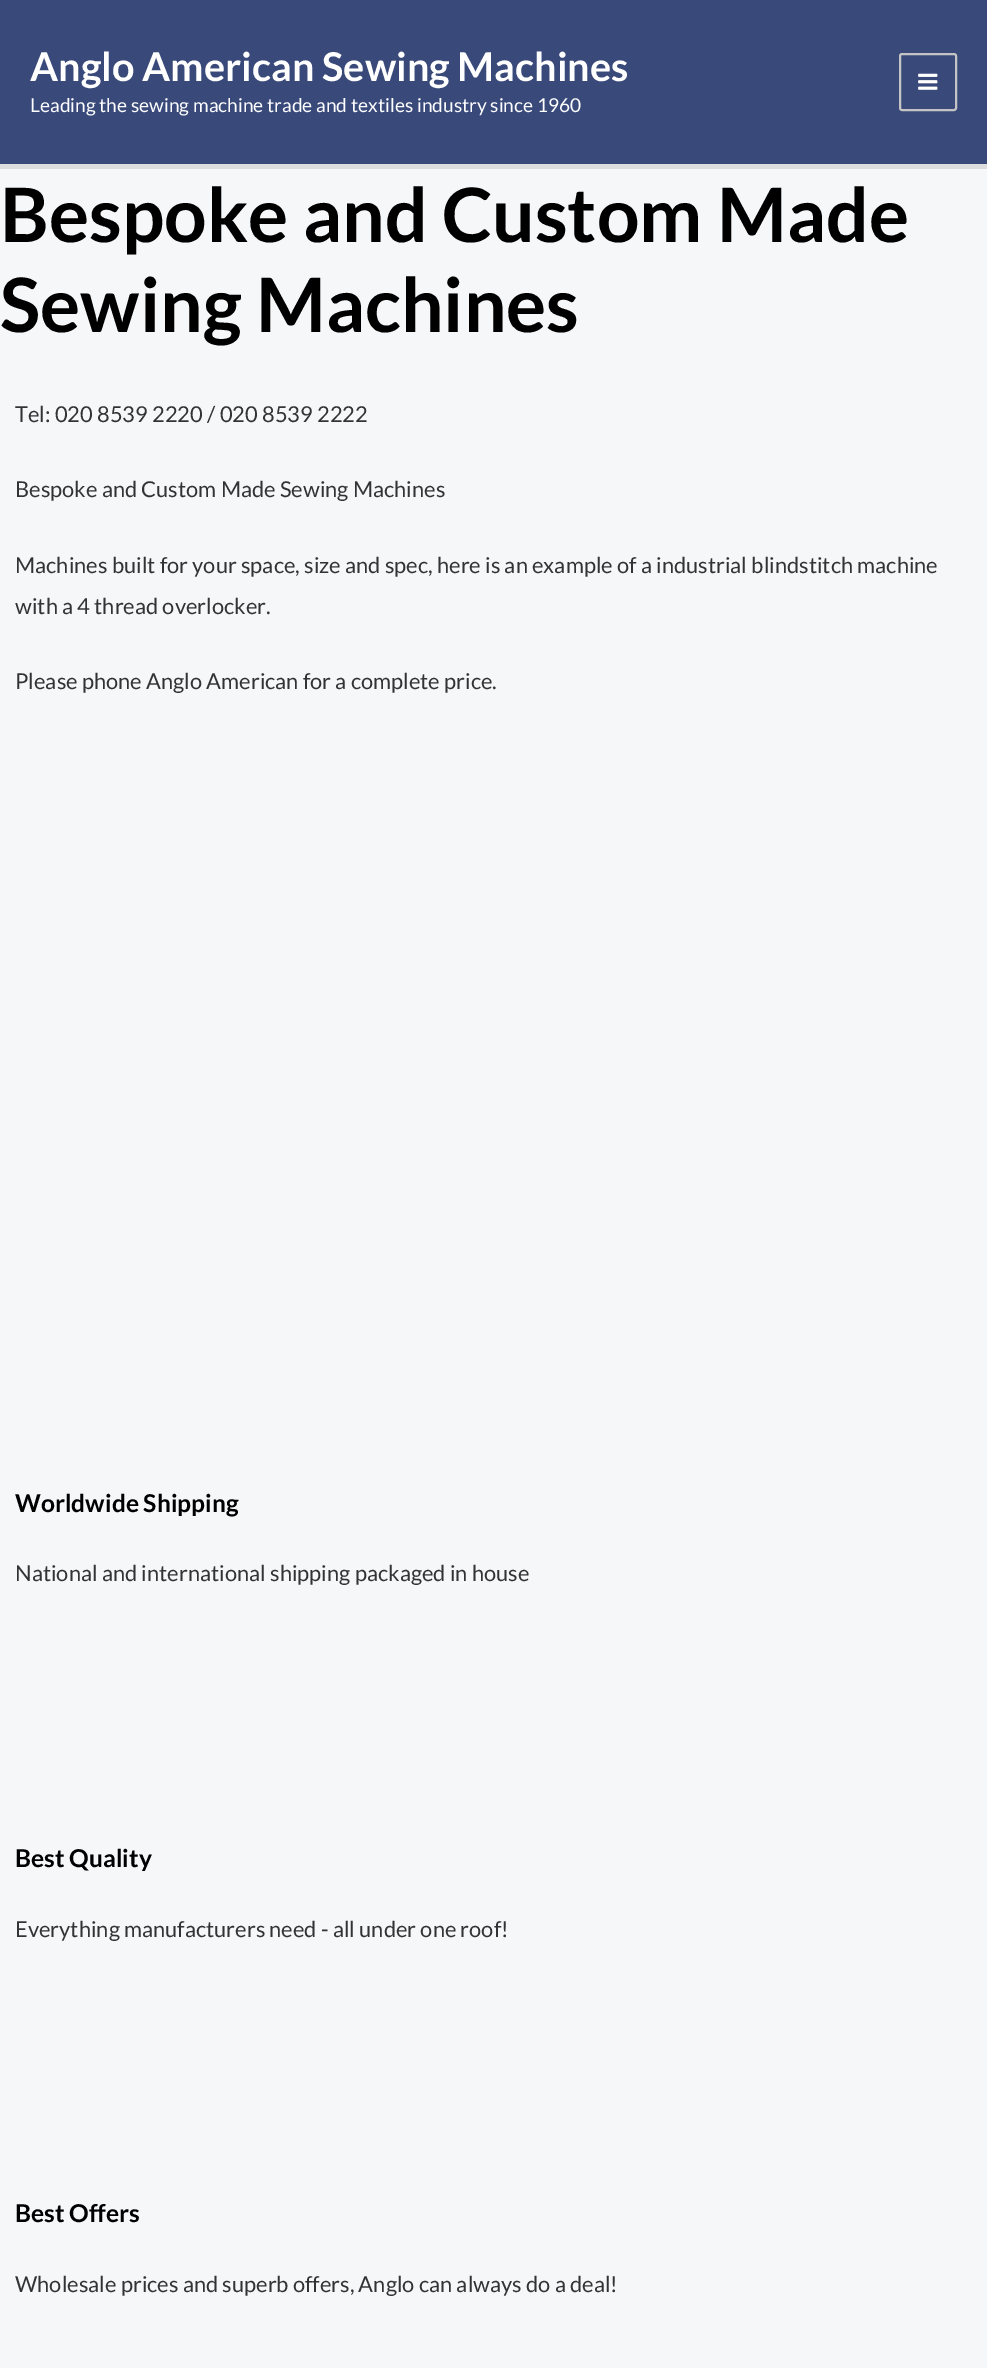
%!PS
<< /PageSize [987 2368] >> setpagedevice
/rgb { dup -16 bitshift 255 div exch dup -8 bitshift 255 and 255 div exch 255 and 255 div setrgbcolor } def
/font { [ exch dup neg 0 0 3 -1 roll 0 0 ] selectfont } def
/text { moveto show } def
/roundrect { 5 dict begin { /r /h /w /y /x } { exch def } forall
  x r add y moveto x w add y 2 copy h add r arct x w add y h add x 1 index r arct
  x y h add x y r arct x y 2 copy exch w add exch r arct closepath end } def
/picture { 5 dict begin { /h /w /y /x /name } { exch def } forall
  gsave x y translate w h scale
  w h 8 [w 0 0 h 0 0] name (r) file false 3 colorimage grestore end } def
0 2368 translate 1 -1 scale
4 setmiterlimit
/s1 { /Lato-Bold 39.7 font 16#FFFFFF rgb } def
/s2 { /Lato-Regular 19.15 font 16#FFFFFF rgb } def
/s3 { /Lato-Bold 75 font 16#000000 rgb } def
/s4 { /Lato-Regular 21.9 font 16#333333 rgb } def
/s5 { /Lato-Bold 24.6 font 16#000000 rgb } def
16#F5F7F9 rgb
0 0 987 2368 rectfill
16#39497A rgb
0 0 987 164 rectfill
16#DDDDDD rgb
0 164 987 5 rectfill
s1
(Anglo American Sewing Machines) 30 81 text
s2
(Leading the sewing machine trade and textiles industry since 1960) 30 112 text
16#C4C4C4 rgb
2 setlinewidth
900 54 56 56 2 roundrect stroke
(pic1.raw) 918 73 20 17 picture
s3
(Bespoke and Custom Made) 0 242 text
(Sewing Machines) 0 332 text
s4
(Tel: 020 8539 2220 / 020 8539 2222) 15 422 text
(Bespoke and Custom Made Sewing Machines) 15 497 text
(Machines built for your space, size and spec, here is an example of a industrial blindstitch machine) 15 573 text
(with a 4 thread overlocker.) 15 614 text
(Please phone Anglo American for a complete price.) 15 689 text
s5
(Worldwide Shipping) 15 1512 text
s4
(National and international shipping packaged in house) 15 1581 text
s5
(Best Quality) 15 1867 text
s4
(Everything manufacturers need - all under one roof!) 15 1937 text
s5
(Best Offers) 15 2222 text
s4
(Wholesale prices and superb offers, Anglo can always do a deal!) 15 2292 text
showpage
